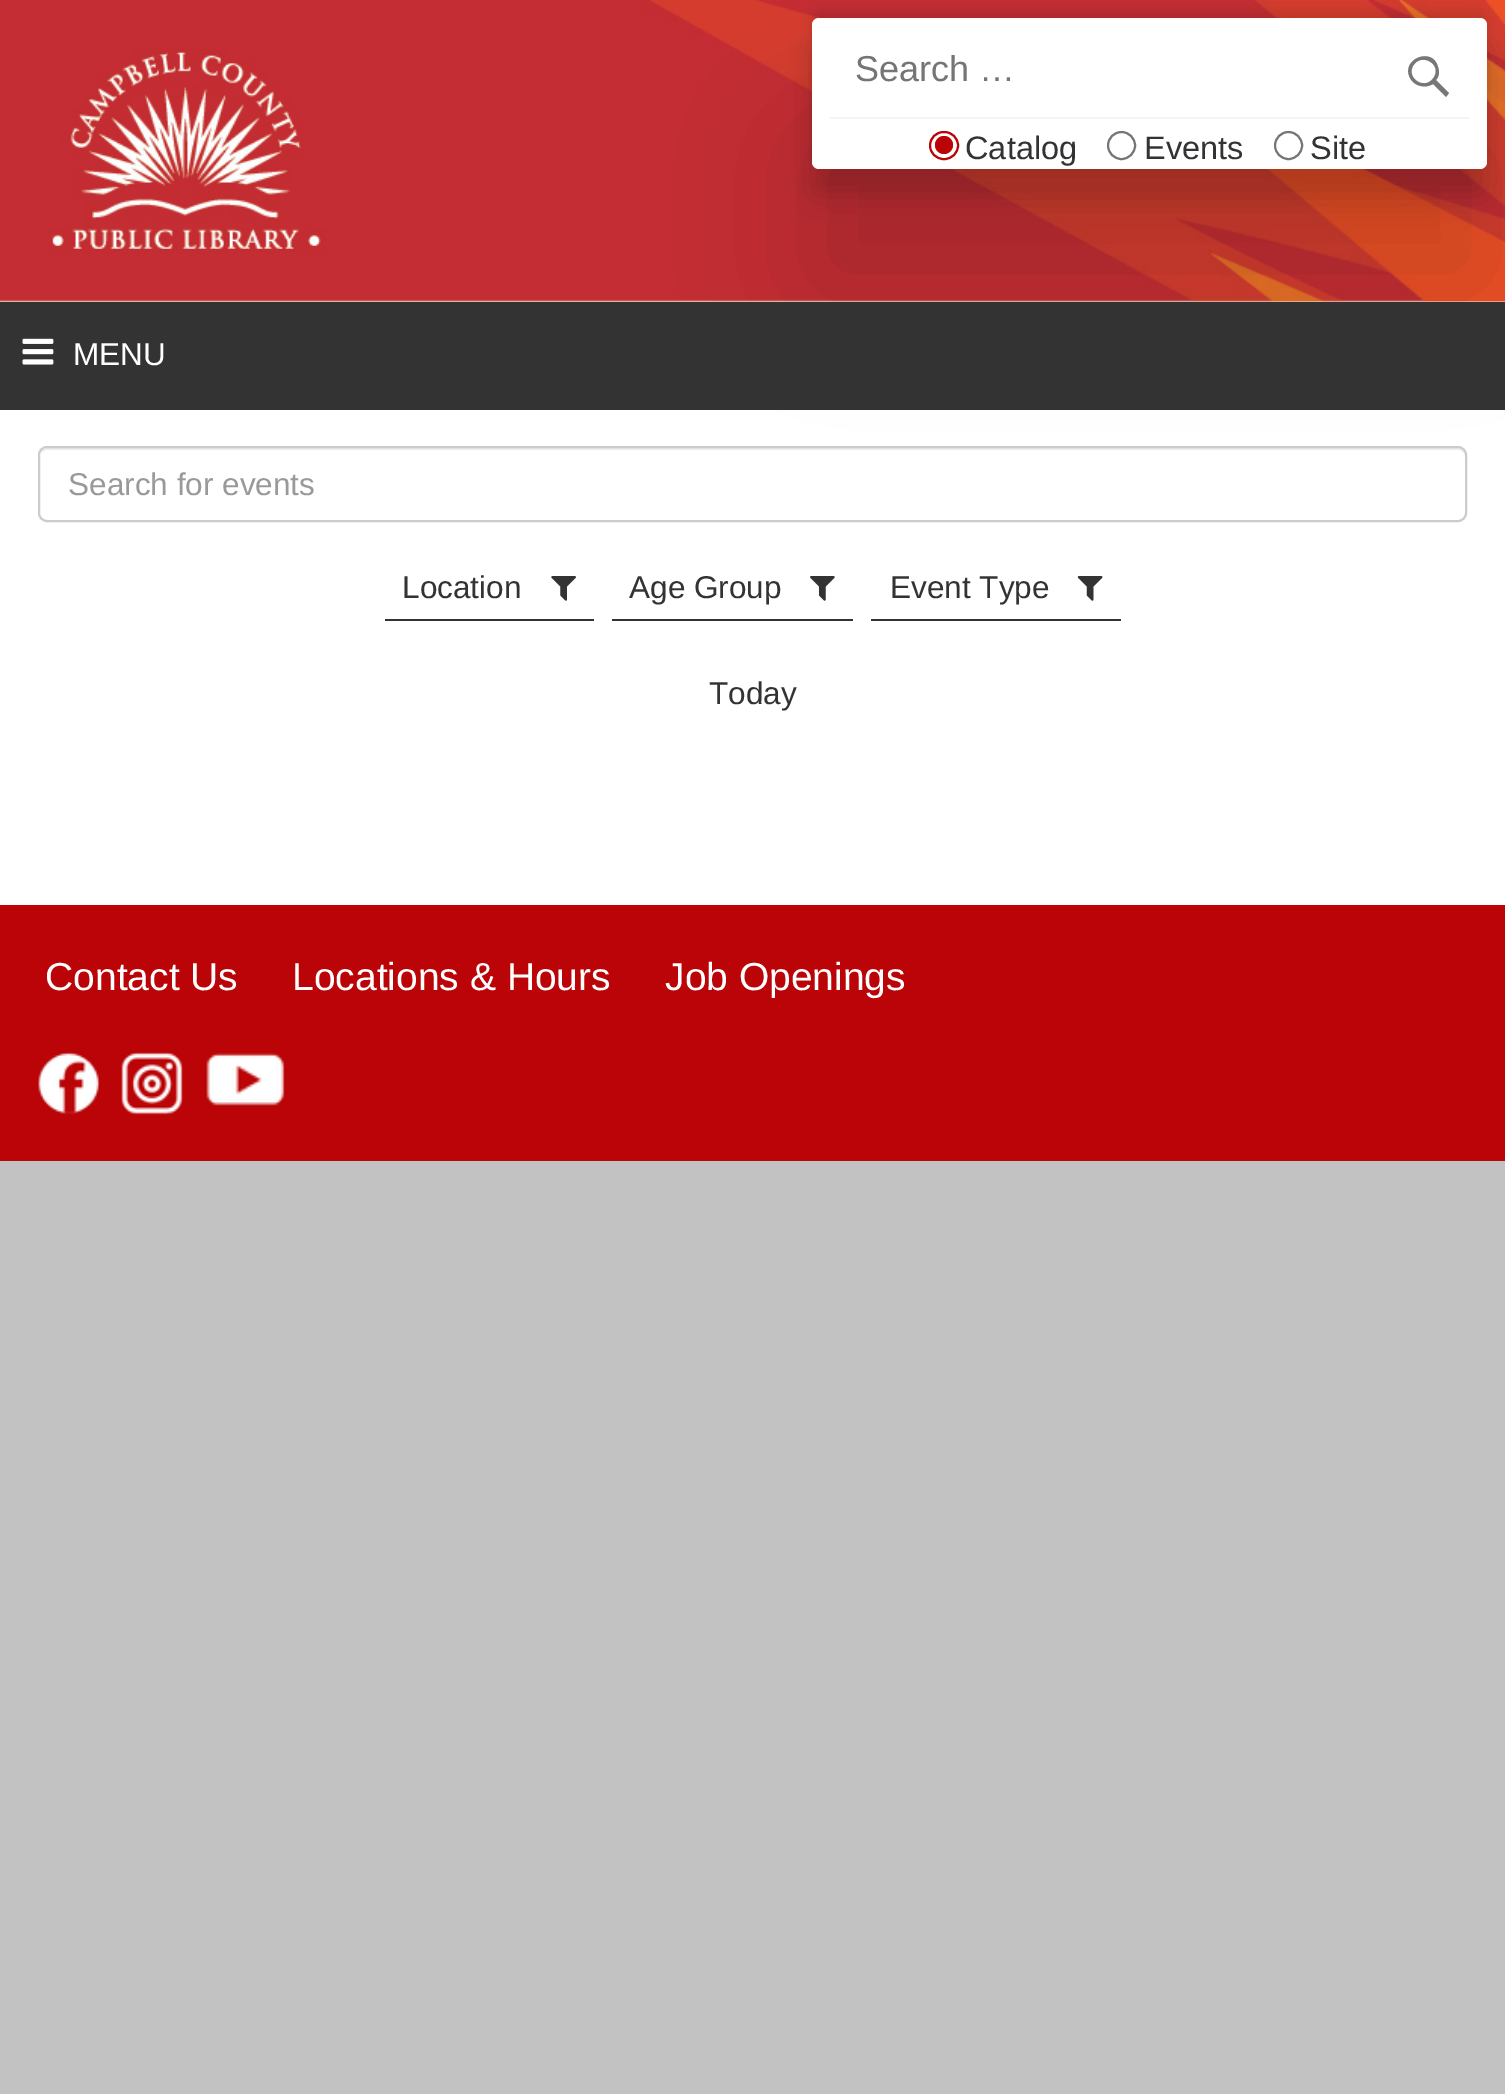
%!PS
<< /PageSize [1505 2094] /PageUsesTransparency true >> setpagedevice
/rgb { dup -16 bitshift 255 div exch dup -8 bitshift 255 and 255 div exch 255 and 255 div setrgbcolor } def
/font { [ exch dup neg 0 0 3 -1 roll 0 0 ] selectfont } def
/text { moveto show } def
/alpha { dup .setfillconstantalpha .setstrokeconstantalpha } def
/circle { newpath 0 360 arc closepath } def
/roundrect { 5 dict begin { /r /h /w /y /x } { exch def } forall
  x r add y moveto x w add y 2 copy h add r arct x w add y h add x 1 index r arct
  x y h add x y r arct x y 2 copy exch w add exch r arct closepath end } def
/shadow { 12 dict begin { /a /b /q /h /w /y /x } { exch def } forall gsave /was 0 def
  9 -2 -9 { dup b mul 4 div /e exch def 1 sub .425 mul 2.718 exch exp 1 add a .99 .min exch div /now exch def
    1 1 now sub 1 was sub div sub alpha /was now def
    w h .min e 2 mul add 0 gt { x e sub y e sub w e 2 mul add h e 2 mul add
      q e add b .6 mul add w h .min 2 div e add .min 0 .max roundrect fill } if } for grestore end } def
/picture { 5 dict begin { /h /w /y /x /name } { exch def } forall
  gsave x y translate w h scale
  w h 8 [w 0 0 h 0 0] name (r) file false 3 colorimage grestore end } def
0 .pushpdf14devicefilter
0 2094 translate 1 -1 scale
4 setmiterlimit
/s1 { /LiberationSans-Regular 36 font 16#757575 rgb } def
/s2 { /LiberationSans-Regular 32.5 font 16#333333 rgb } def
/s3 { /LiberationSans-Regular 31.5 font 16#FFFFFF rgb } def
/s4 { /LiberationSans-Regular 31.5 font 16#999999 rgb } def
/s5 { /LiberationSans-Regular 31.5 font 16#333333 rgb } def
/s6 { /LiberationSans-Regular 39 font 16#FFFFFF rgb } def
16#C2C2C2 rgb
0 0 1505 2094 rectfill
16#FFFFFF rgb
0 301 1505 1 rectfill
(pic1.raw) 0 0 1505 302 picture
16#000000 rgb
812 11 675 151 7 5.5 0.09 shadow
812 45 675 151 7 14.5 0.17 shadow
16#FFFFFF rgb
0 410 1505 495 rectfill
16#000000 rgb
812 140 675 150 7 62 0.15 shadow
16#FFFFFF rgb
812 18 675 151 7 roundrect fill
s1
(Search …) 855 81 text
16#777777 rgb
1449 93 moveto 1446 97 lineto 1433 84 lineto 1425 89 1414 86 1410 78 curveto 1400 59 1433 46 1438 67 curveto 1440 72 1439 77 1436 80 curveto closepath 1413 66 moveto 1406 79 1426 91 1434 77 curveto 1442 64 1421 52 1413 66 curveto closepath fill
16#F5F5F5 rgb
830 117 639 2 rectfill
16#BB0407 rgb
2 setlinewidth
930 132 28 27 13.5 roundrect stroke
944 145 9 circle fill
s2
(Catalog) 965 159 text
16#767676 rgb
1121.5 145.5 13.5 circle stroke
s2
(Events) 1144 159 text
16#767676 rgb
1288.5 145.5 13.5 circle stroke
s2
(Site) 1310 159 text
0 302 1505 108 rectfill
(pic2.raw) 22 338 32 27 picture
s3
(MENU) 73 365 text
16#ECECEC rgb
47 450 moveto 1458 450 lineto 1462 450 1465 453 1465 457 curveto 1465 455 lineto 1465 451 1462 448 1458 448 curveto 48 448 lineto 45 448 42 450 41 453 curveto 43 451 45 450 47 450 curveto closepath fill
16#CCCCCC rgb
39 447 1427 74 8 roundrect stroke
s4
(Search for events) 68 495 text
16#333333 rgb
385 619 209 2 rectfill
(Location) 402 598 text
(pic3.raw) 551 576 25 25 picture
612 619 241 2 rectfill
(Age Group) 629 598 text
(pic4.raw) 810 576 25 25 picture
871 619 250 2 rectfill
(Event Type) 890 598 text
(pic5.raw) 1077 576 26 25 picture
(Today) 709 704 text
16#BB0407 rgb
0 905 1505 256 rectfill
s6
(Contact Us) 45 990 text
(Locations & Hours) 292 990 text
(Job Openings) 665 990 text
(pic6.raw) 38 1052 62 63 picture
(pic7.raw) 121 1052 62 63 picture
(pic8.raw) 205 1051 80 56 picture
.poppdf14devicefilter showpage
